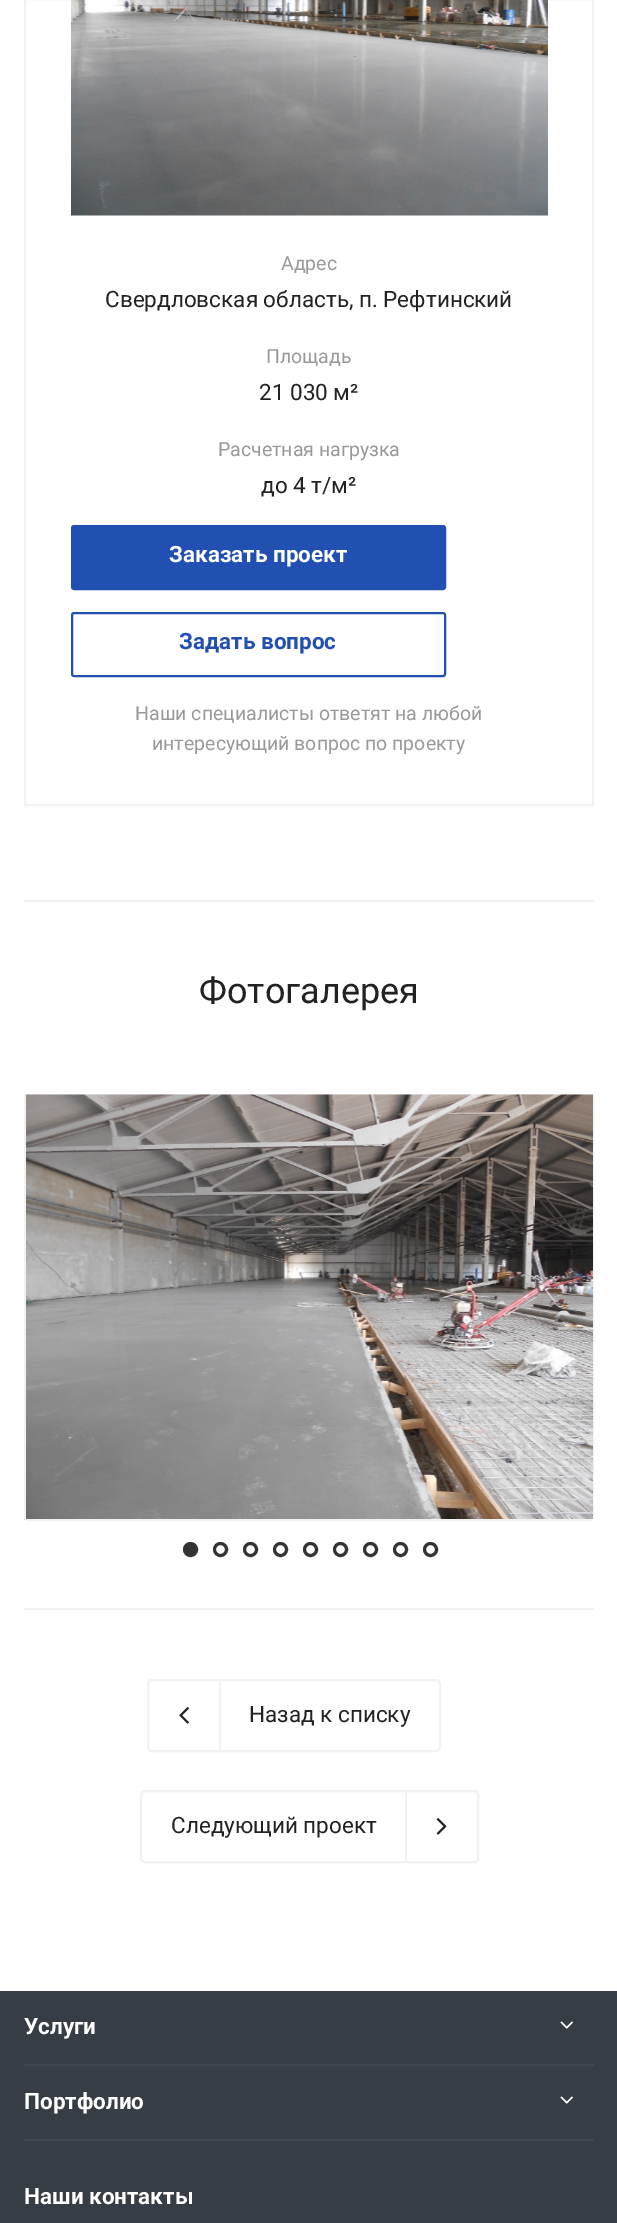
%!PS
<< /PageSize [617 2223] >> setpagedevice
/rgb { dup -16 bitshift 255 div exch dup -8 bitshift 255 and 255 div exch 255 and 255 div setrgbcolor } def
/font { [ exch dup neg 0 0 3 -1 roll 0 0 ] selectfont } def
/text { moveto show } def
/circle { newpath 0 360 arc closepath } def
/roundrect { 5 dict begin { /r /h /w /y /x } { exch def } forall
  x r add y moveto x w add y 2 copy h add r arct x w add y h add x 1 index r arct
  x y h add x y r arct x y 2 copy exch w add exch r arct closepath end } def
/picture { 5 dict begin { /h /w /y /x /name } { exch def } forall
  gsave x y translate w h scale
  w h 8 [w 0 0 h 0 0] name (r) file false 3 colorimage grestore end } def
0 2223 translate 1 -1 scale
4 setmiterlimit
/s1 { /Roboto-Regular 19.5 font 16#999999 rgb } def
/s2 { /Roboto-Regular 22.5 font 16#222222 rgb } def
/s3 { /Roboto-Bold 22.5 font 16#FFFFFF rgb } def
/s4 { /Roboto-Bold 22.5 font 16#214FB2 rgb } def
/s5 { /Roboto-Regular 36 font 16#222222 rgb } def
16#FFFFFF rgb
0 0 617 2223 rectfill
16#F2F2F2 rgb
2 setlinewidth
25 -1 568 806 rectstroke
(pic1.raw) 71 0 477 216 picture
s1
(Адрес) 281 270 text
s2
(Свердловская область, п. Рефтинский) 105 307 text
s1
(Площадь) 266 363 text
s2
(21 030 м²) 259 400 text
s1
(Расчетная нагрузка) 218 456 text
s2
(до 4 т/м²) 261 493 text
16#214FB2 rgb
72 526 373 63 2 roundrect gsave fill grestore
stroke
s3
(Заказать проект) 169 562 text
16#214FB2 rgb
72 613 373 63 2 roundrect stroke
(Задать вопрос) 179 649 text
s1
(Наши специалисты ответят на любой) 135 720 text
(интересующий вопрос по проекту) 152 750 text
16#F2F2F2 rgb
24 900 570 2 rectfill
s5
(Фотогалерея) 199 1003 text
16#F2F2F2 rgb
25 1095 568 425 2 roundrect stroke
(pic2.raw) 26 1094 567 425 picture
16#333333 rgb
190.5 1549.5 6 circle gsave fill grestore
3 setlinewidth
stroke
220.5 1549.5 6 circle stroke
250.5 1549.5 6 circle stroke
280.5 1549.5 6 circle stroke
310.5 1549.5 6 circle stroke
340.5 1549.5 6 circle stroke
370.5 1549.5 6 circle stroke
400.5 1549.5 6 circle stroke
430.5 1549.5 6 circle stroke
16#F2F2F2 rgb
24 1608 570 2 rectfill
2 setlinewidth
148 1680 292 71 4 roundrect stroke
(pic3.raw) 179 1707 10 17 picture
219 1680 2 71 rectfill
s2
(Назад к списку) 249 1722 text
16#F2F2F2 rgb
141 1791 337 71 4 roundrect stroke
s2
(Следующий проект) 171 1833 text
16#F2F2F2 rgb
405 1791 2 71 rectfill
(pic4.raw) 436 1818 11 17 picture
16#373D44 rgb
0 1991 617 232 rectfill
16#41474E rgb
24 2064 570 2 rectfill
s3
(Услуги) 24 2034 text
(pic5.raw) 560 2021 13 8 picture
16#41474E rgb
24 2139 570 2 rectfill
s3
(Портфолио) 24 2109 text
(pic5.raw) 560 2096 13 8 picture
(Наши контакты) 24 2204 text
showpage
